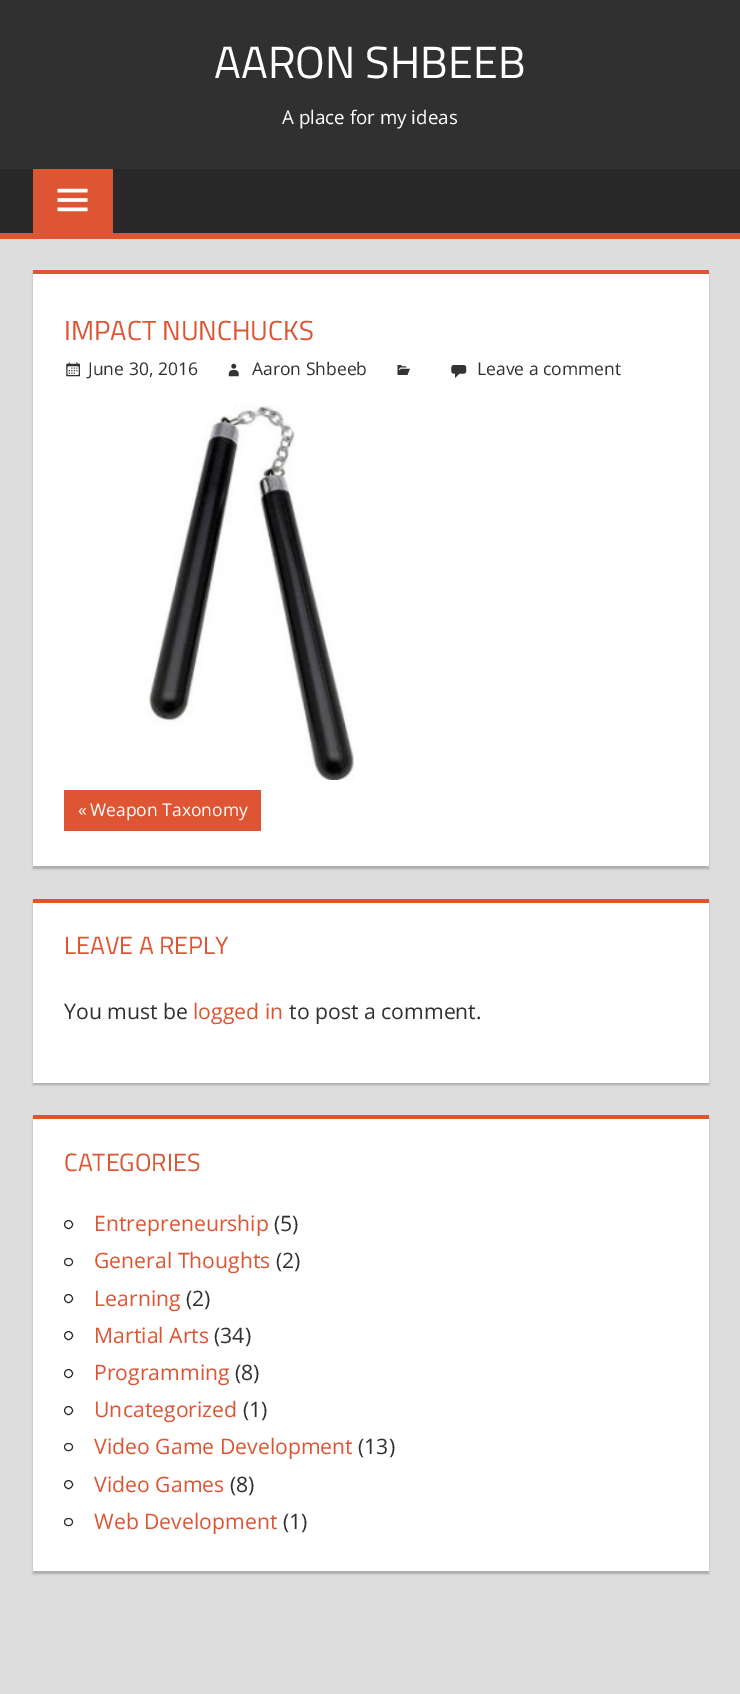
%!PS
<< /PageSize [740 1694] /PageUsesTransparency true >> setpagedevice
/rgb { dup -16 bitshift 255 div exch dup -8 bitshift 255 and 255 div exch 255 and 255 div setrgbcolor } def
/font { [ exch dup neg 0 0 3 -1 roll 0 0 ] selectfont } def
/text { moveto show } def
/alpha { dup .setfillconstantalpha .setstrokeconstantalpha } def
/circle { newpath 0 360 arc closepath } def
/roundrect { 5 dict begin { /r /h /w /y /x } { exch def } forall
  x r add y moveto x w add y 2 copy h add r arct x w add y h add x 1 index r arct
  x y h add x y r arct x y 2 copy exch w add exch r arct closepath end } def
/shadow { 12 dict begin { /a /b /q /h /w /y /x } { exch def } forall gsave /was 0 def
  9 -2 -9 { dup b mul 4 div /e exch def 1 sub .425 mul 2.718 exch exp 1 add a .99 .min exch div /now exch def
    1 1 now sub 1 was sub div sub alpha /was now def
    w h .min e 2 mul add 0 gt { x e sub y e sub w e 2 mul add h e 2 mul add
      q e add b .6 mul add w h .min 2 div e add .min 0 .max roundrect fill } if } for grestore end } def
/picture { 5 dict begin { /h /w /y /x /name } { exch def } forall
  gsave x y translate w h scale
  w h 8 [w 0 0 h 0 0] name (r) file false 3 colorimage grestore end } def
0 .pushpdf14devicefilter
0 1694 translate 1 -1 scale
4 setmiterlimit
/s1 { /TitilliumWeb-Regular 45 font 16#FFFFFF rgb } def
/s2 { /OpenSans-Regular 18.75 font 16#FFFFFF rgb } def
/s3 { /TitilliumWeb-Regular 27.5 font 16#DD5533 rgb } def
/s4 { /OpenSans-Regular 17.5 font 16#303030 rgb } def
/s5 { /OpenSans-Regular 17.5 font 16#FFFFFF rgb } def
/s6 { /TitilliumWeb-Regular 25 font 16#DD5533 rgb } def
/s7 { /OpenSans-Regular 21.25 font 16#303030 rgb } def
/s8 { /OpenSans-Regular 21.25 font 16#DD5533 rgb } def
16#DDDDDD rgb
0 0 740 1694 rectfill
16#303030 rgb
0 0 740 169 rectfill
s1
(AARON SHBEEB) 214 78 text
s2
(A place for my ideas) 282 124 text
16#292929 rgb
0 170 740 63 rectfill
16#272727 rgb
0 169 740 1 rectfill
16#DD5533 rgb
0 233 740 6 rectfill
33 169 80 64 rectfill
(pic1.raw) 57 188 31 24 picture
16#AAAAAA rgb
33 273 676 596 0 1 1 shadow
16#FFFFFF rgb
33 274 676 592 rectfill
16#DD5533 rgb
33 270 676 4 rectfill
s3
(IMPACT NUNCHUCKS) 64 340 text
(pic2.raw) 66 362 14 15 picture
s4
(June 30, 2016) 88 375 text
(pic3.raw) 228 363 11 14 picture
(Aaron Shbeeb) 252 375 text
(pic4.raw) 397 365 13 10 picture
(pic5.raw) 451 365 16 13 picture
(Leave a comment) 477 375 text
(pic6.raw) 144 405 210 375 picture
16#DD5533 rgb
64 790 197 41 rectfill
s5
(«) 78 816 text
(Weapon Taxonomy) 90 816 text
16#AAAAAA rgb
33 901 676 184 0 1 1 shadow
16#FFFFFF rgb
33 903 676 180 rectfill
16#DD5533 rgb
33 899 676 4 rectfill
s6
(LEAVE A REPLY) 64 954 text
s7
(You must be) 64 1019 text
s8
(logged in) 193 1019 text
s7
(to post a comment.) 289 1019 text
16#AAAAAA rgb
33 1118 676 456 0 1 1 shadow
16#FFFFFF rgb
33 1119 676 452 rectfill
16#DD5533 rgb
33 1115 676 4 rectfill
s6
(CATEGORIES) 64 1171 text
16#303030 rgb
68.5 1224.5 4 circle stroke
s8
(Entrepreneurship) 94 1231 text
s7
(\(5\)) 274 1231 text
64.5 1258.5 8 7 3.5 roundrect stroke
s8
(General Thoughts) 94 1268 text
s7
(\(2\)) 276 1268 text
68.5 1298.5 4 circle stroke
s8
(Learning) 94 1306 text
s7
(\(2\)) 186 1306 text
68.5 1335.5 4 circle stroke
s8
(Martial Arts) 94 1343 text
s7
(\(34\)) 214 1343 text
68.5 1373.5 4 circle stroke
s8
(Programming) 94 1380 text
s7
(\(8\)) 235 1380 text
68.5 1410.5 4 circle stroke
s8
(Uncategorized) 94 1417 text
s7
(\(1\)) 243 1417 text
64.5 1443.5 8 7 3.5 roundrect stroke
s8
(Video Game Development) 94 1454 text
s7
(\(13\)) 358 1454 text
68.5 1484.5 4 circle stroke
s8
(Video Games) 94 1492 text
s7
(\(8\)) 230 1492 text
64.5 1518.5 8 7 3.5 roundrect stroke
s8
(Web Development) 94 1529 text
s7
(\(1\)) 283 1529 text
.poppdf14devicefilter showpage
